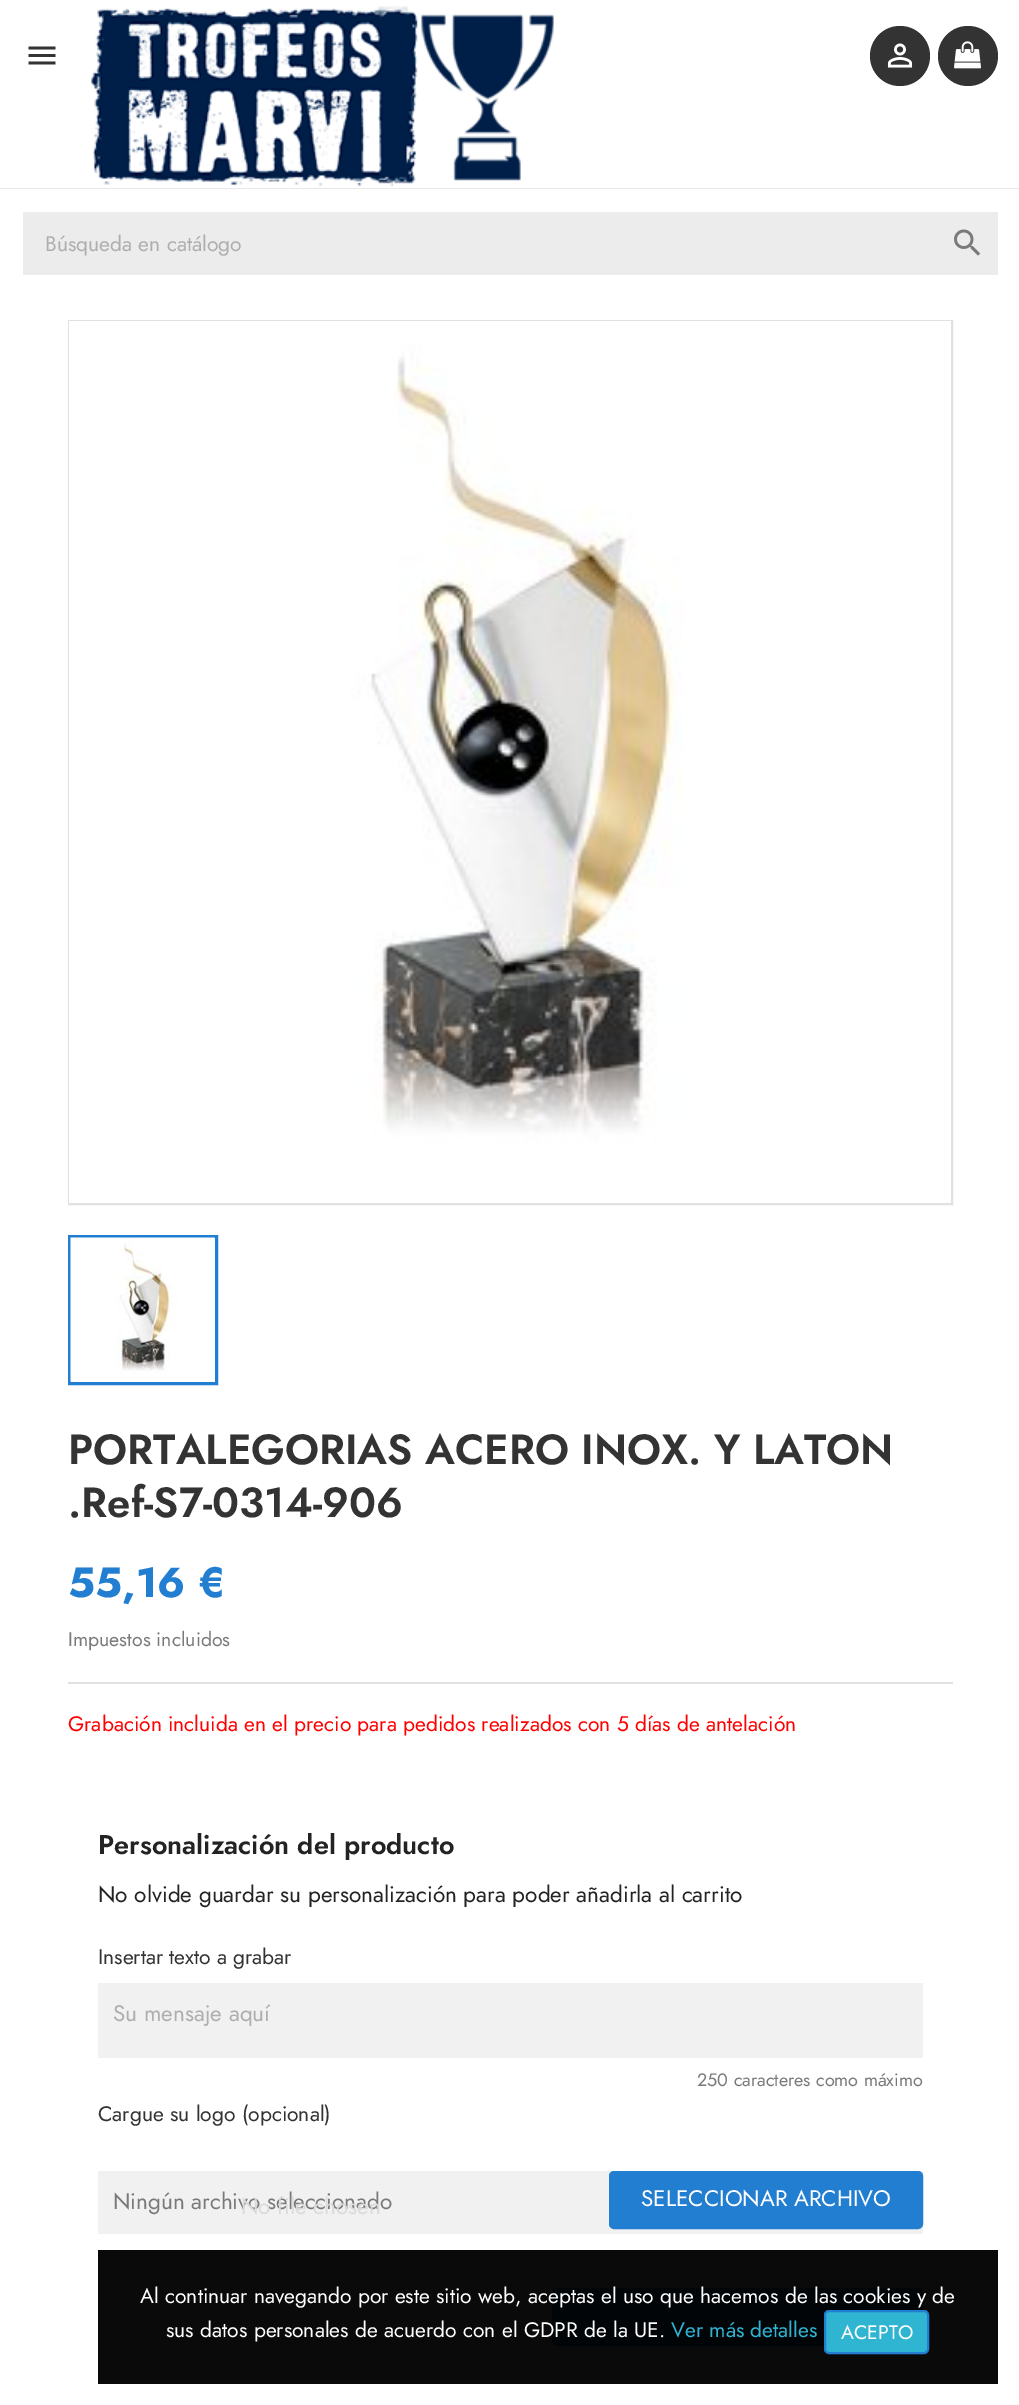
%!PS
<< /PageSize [1019 2405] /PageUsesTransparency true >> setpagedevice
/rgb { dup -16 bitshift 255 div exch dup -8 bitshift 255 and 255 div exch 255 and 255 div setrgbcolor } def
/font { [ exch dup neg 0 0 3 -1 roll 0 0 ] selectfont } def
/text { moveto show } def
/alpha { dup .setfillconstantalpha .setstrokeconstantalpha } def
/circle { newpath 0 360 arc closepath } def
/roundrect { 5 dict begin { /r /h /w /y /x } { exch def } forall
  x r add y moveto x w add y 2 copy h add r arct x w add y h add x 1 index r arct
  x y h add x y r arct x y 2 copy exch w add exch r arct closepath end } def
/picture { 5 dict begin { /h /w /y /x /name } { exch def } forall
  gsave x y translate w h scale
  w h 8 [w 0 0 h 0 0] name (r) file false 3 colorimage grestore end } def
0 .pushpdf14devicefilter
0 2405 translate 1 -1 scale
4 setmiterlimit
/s1 { /Jost-Regular 21 font 16#AEAEAE rgb } def
/s2 { /Jost-SemiBold 42 font 16#333333 rgb } def
/s3 { /Jost-Bold 42 font 16#227ED1 rgb } def
/s4 { /Jost-Regular 19.5 font 16#7A7A7A rgb } def
/s5 { /Jost-Regular 21 font 16#FF0000 rgb } def
/s6 { /Jost-SemiBold 27 font 16#232323 rgb } def
/s7 { /Jost-Regular 22.5 font 16#232323 rgb } def
/s8 { /Jost-Regular 21 font 16#333333 rgb } def
/s9 { /Jost-Regular 22.5 font 16#AEAEAE rgb } def
/s10 { /Jost-Regular 18 font 16#7A7A7A rgb } def
/s11 { /Jost-Regular 22.5 font 16#7A7A7A rgb } def
/s12 { /Jost-Regular 22.5 font 16#FFFFFF rgb } def
/s13 { /Jost-Regular 22.5 font 16#DADADA rgb } def
/s14 { /Jost-Regular 21 font 16#FFFFFF rgb } def
/s15 { /Jost-Regular 21 font 16#2FB5D2 rgb } def
/s16 { /Jost-Regular 19.5 font 16#FFFFFF rgb } def
16#FFFFFF rgb
0 0 1019 2405 rectfill
16#E8E8E8 rgb
0 188 1019 1 rectfill
(pic1.raw) 28 46 28 19 picture
(pic2.raw) 91 6 463 181 picture
16#333333 rgb
900 56 30 circle fill
(pic3.raw) 887 43 26 25 picture
968 56 30 circle fill
(pic4.raw) 954 41 27 28 picture
16#ECECEC rgb
23 212 975 63 rectfill
s1
(Búsqueda en catálogo) 45 251 text
(pic5.raw) 954 229 27 27 picture
16#E1E1E1 rgb
2 setlinewidth
69 321 883 883 rectstroke
(pic6.raw) 69 321 882 882 picture
16#227ED1 rgb
3 setlinewidth
69.5 1236.5 147 147 rectstroke
(pic7.raw) 70 1237 145 145 picture
s2
(PORTALEGORIAS ACERO INOX. Y LATON) 68 1464 text
(.Ref-S7-0314-906) 68 1517 text
s3
(55,16 €) 68 1597 text
s4
(Impuestos incluidos) 68 1646 text
16#E1E1E1 rgb
68 1682 885 2 rectfill
s5
(Grabación incluida en el precio para pedidos realizados con 5 días de antelación) 68 1731 text
s6
(Personalización del producto) 98 1854 text
s7
(No olvide guardar su personalización para poder añadirla al carrito) 98 1902 text
s8
(Insertar texto a grabar) 98 1964 text
16#F1F1F1 rgb
98 1983 825 75 rectfill
s9
(Su mensaje aquí) 113 2021 text
s10
(250 caracteres como máximo) 697 2086 text
s8
(Cargue su logo \(opcional\)) 98 2121 text
16#F1F1F1 rgb
98 2171 825 63 rectfill
s11
(Ningún archivo seleccionado) 113 2209 text
16#227ED1 rgb
610 2172 312 56 4 roundrect gsave fill grestore
2 setlinewidth
stroke
s12
(SELECCIONAR ARCHIVO) 641 2206 text
s13
(No file chosen) 241 2214 text
16#227ED1 rgb
553 2289 369 56 4 roundrect gsave fill grestore
stroke
0.8 alpha
16#000000 rgb
98 2250 900 134 rectfill
1 alpha
16#227ED1 rgb
825 2311 103 42 4 roundrect stroke
0.8 alpha
16#000000 rgb
98 2250 900 134 rectfill
1 alpha
s14
(Al continuar navegando por este sitio web, aceptas el uso que hacemos de las cookies y de) 140 2303 text
(sus datos personales de acuerdo con el GDPR de la UE.) 166 2337 text
s15
(Ver más detalles) 671 2337 text
825 2311 103 42 4 roundrect gsave fill grestore
16#227ED1 rgb
stroke
s16
(ACEPTO) 841 2339 text
.poppdf14devicefilter showpage
